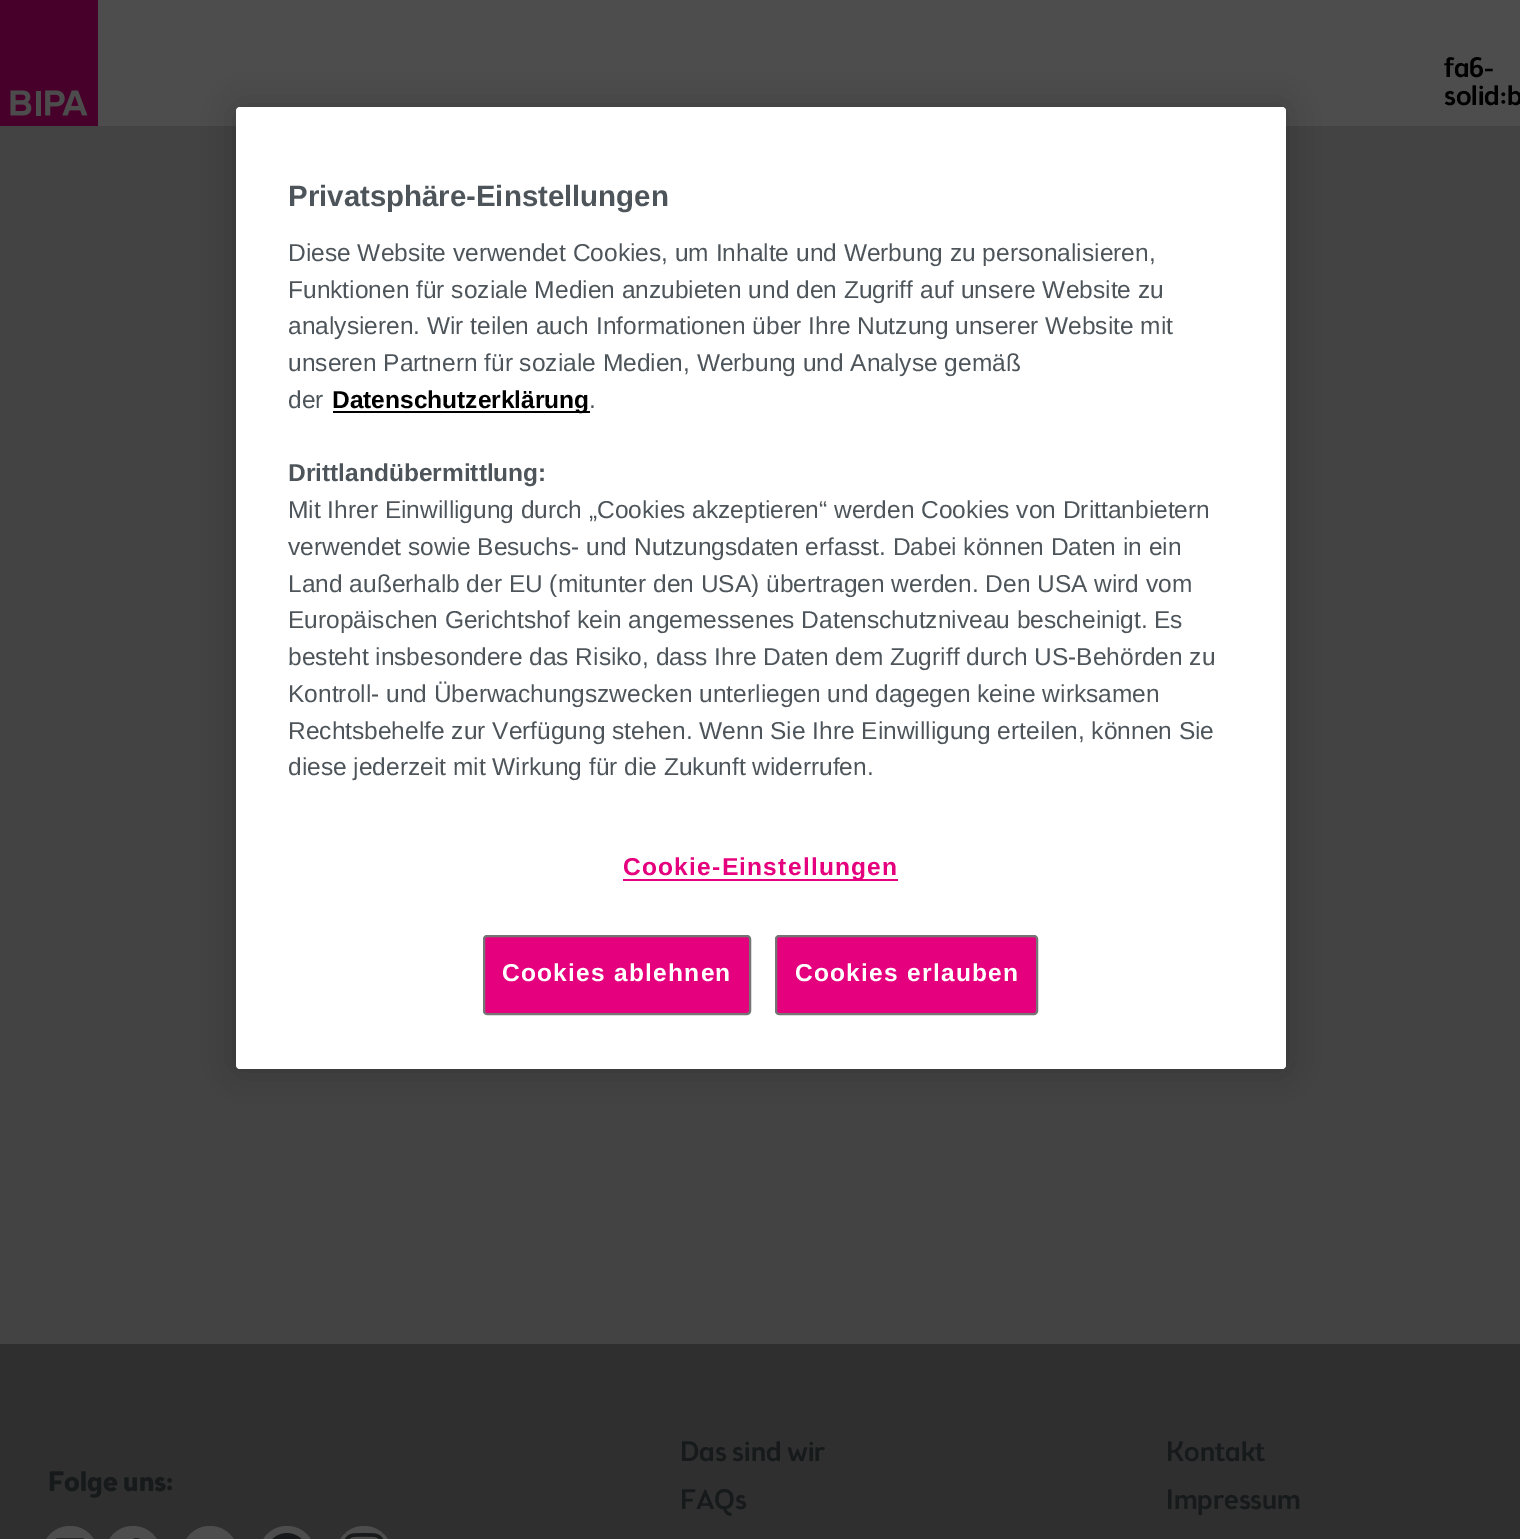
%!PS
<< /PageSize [1520 1539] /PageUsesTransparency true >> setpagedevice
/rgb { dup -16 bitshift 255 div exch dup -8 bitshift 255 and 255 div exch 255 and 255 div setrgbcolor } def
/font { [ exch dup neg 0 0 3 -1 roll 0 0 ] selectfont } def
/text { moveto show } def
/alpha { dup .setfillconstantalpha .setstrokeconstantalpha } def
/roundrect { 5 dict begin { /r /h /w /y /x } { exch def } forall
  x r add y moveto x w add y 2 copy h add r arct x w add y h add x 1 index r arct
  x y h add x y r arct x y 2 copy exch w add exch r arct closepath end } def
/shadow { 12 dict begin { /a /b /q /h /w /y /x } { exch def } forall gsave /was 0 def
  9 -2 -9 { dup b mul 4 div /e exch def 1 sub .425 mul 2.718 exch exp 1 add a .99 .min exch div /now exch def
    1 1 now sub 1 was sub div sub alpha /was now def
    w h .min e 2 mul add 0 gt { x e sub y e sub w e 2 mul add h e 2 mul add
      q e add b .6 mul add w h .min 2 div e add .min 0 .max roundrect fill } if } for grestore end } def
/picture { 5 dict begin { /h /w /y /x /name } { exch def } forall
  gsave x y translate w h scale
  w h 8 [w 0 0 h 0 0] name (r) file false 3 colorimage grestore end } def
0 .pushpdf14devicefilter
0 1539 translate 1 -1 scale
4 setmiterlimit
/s1 { /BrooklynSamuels-Medium 28 font 16#000000 rgb } def
/s2 { /BrooklynSamuels-Bold 28 font 16#171A1B rgb } def
/s3 { /BrooklynSamuels-Medium 28 font 16#171A1B rgb } def
/s4 { /LiberationSans-Bold 29.4 font 16#4D555A rgb } def
/s5 { /LiberationSans-Regular 24.5 font 16#4D555A rgb } def
/s6 { /LiberationSans-Bold 24.5 font 16#000000 rgb } def
/s7 { /LiberationSans-Bold 24.5 font 16#4D555A rgb } def
16#434343 rgb
0 0 1520 1539 rectfill
16#4D4D4D rgb
98 0 1422 126 rectfill
(pic1.raw) 0 0 98 126 picture
s1
(fa6-) 1444 77 text
(solid:b) 1444 105 text
16#2F2F2F rgb
0 1344 1520 195 rectfill
s2
(Folge uns:) 48 1491 text
16#4D4D4D rgb
42 1526 56 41 28 roundrect fill
(pic2.raw) 55 1538 30 1 picture
105 1526 56 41 28 roundrect fill
(pic3.raw) 133 1538 7 1 picture
182 1526 56 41 28 roundrect fill
259 1526 56 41 28 roundrect fill
(pic4.raw) 272 1533 30 6 picture
336 1526 56 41 28 roundrect fill
(pic5.raw) 344 1533 40 6 picture
s3
(Das sind wir) 680 1461 text
(FAQs) 680 1509 text
(Kontakt) 1166 1461 text
(Impressum) 1166 1509 text
16#000000 rgb
236 107 1050 962 4 16 0.2 shadow
16#FFFFFF rgb
236 107 1050 962 4 roundrect fill
s4
(Privatsphäre-Einstellungen) 288 206 text
s5
(Diese Website verwendet Cookies, um Inhalte und Werbung zu personalisieren,) 288 261 text
(Funktionen für soziale Medien anzubieten und den Zugriff auf unsere Website zu) 288 298 text
(analysieren. Wir teilen auch Informationen über Ihre Nutzung unserer Website mit) 288 334 text
(unseren Partnern für soziale Medien, Werbung und Analyse gemäß) 288 371 text
(der) 288 408 text
16#000000 rgb
333 411 257 2 rectfill
s6
(Datenschutzerklärung) 332 408 text
s5
(.) 589 408 text
s7
(Drittlandübermittlung:) 288 481 text
s5
(Mit Ihrer Einwilligung durch „Cookies akzeptieren“ werden Cookies von Drittanbietern) 288 518 text
(verwendet sowie Besuchs- und Nutzungsdaten erfasst. Dabei können Daten in ein) 288 555 text
(Land außerhalb der EU \(mitunter den USA\) übertragen werden. Den USA wird vom) 288 592 text
(Europäischen Gerichtshof kein angemessenes Datenschutzniveau bescheinigt. Es) 288 628 text
(besteht insbesondere das Risiko, dass Ihre Daten dem Zugriff durch US-Behörden zu) 288 665 text
(Kontroll- und Überwachungszwecken unterliegen und dagegen keine wirksamen) 288 702 text
(Rechtsbehelfe zur Verfügung stehen. Wenn Sie Ihre Einwilligung erteilen, können Sie) 288 739 text
(diese jederzeit mit Wirkung für die Zukunft widerrufen.) 288 775 text
16#E5007D rgb
623 879 275 2 rectfill
/LiberationSans-Bold 24.5 font
623 875 moveto 1.25 0 (Cookie-Einstellungen) ashow
484 936 266 78 3 roundrect gsave fill grestore
16#757575 rgb
2 setlinewidth
stroke
16#FFFFFF rgb
502 981 moveto 1.25 0 (Cookies ablehnen) ashow
16#E5007D rgb
776 936 261 78 3 roundrect gsave fill grestore
16#757575 rgb
stroke
16#FFFFFF rgb
795 981 moveto 1.25 0 (Cookies erlauben) ashow
.poppdf14devicefilter showpage
